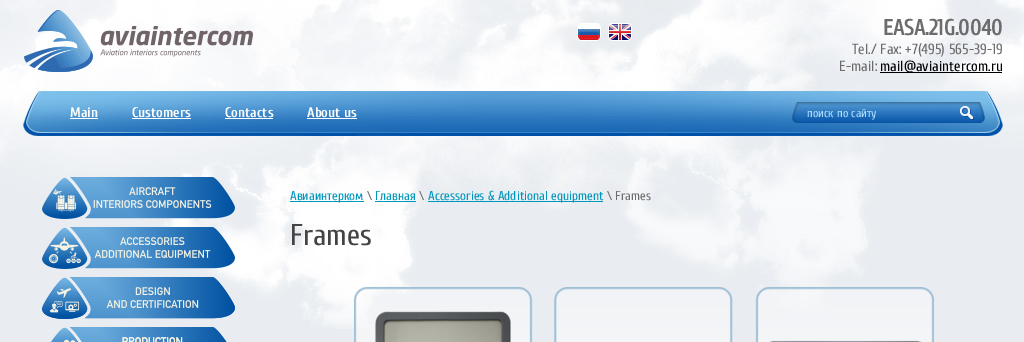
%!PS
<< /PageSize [1024 342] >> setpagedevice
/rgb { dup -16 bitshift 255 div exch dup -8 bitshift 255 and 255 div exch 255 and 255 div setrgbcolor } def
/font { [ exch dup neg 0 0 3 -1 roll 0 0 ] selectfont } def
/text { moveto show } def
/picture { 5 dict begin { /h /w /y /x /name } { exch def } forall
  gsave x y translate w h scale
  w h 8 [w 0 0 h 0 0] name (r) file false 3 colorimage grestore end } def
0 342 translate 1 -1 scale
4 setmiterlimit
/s1 { /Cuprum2-Bold 22 font 16#6C6C6D rgb } def
/s2 { /Cuprum-Regular 14.75 font 16#6C6C6D rgb } def
/s3 { /Cuprum-Regular 14.75 font 16#000000 rgb } def
/s4 { /Cuprum-Bold 14 font 16#FFFFFF rgb } def
/s5 { /Cuprum-Regular 12 font 16#AEDEFF rgb } def
/s6 { /Cuprum-Regular 13 font 16#0097BD rgb } def
/s7 { /Cuprum-Regular 13 font 16#6C6C6D rgb } def
/s8 { /Cuprum-Regular 30 font 16#444444 rgb } def
16#E9EDF1 rgb
0 0 1024 342 rectfill
(pic1.raw) 0 0 1024 329 picture
(pic2.raw) 24 10 229 62 picture
(pic3.raw) 577 23 24 18 picture
(pic4.raw) 608 23 24 18 picture
s1
(EASA.21G.0040) 883 35 text
s2
(Tel./ Fax: +7\(495\) 565-39-19) 852 54 text
(E-mail:) 839 71 text
16#000000 rgb
880 72 122 1 rectfill
(mail@aviaintercom.ru) 880 71 text
s4
(Main) 70 117 text
70 118 28 1 rectfill
(Customers) 132 117 text
132 118 59 1 rectfill
(Contacts) 225 117 text
225 118 48 1 rectfill
(About us) 307 117 text
307 118 50 1 rectfill
(pic5.raw) 792 102 193 21 picture
s5
(поиск по сайту) 807 117 text
(pic6.raw) 42 177 193 42 picture
(pic7.raw) 42 227 193 42 picture
(pic8.raw) 42 277 193 42 picture
(pic9.raw) 51 327 176 15 picture
16#0097BD rgb
290 201 74 1 rectfill
s6
(Авиаинтерком) 290 200 text
s7
(\\) 367 200 text
s6
(Главная) 375 200 text
375 201 41 1 rectfill
s7
(\\) 419 200 text
16#0097BD rgb
428 201 175 1 rectfill
(Accessories & Additional equipment) 428 200 text
s7
(\\ Frames) 607 200 text
s8
(Frames) 290 245 text
(pic10.raw) 354 287 580 55 picture
showpage
